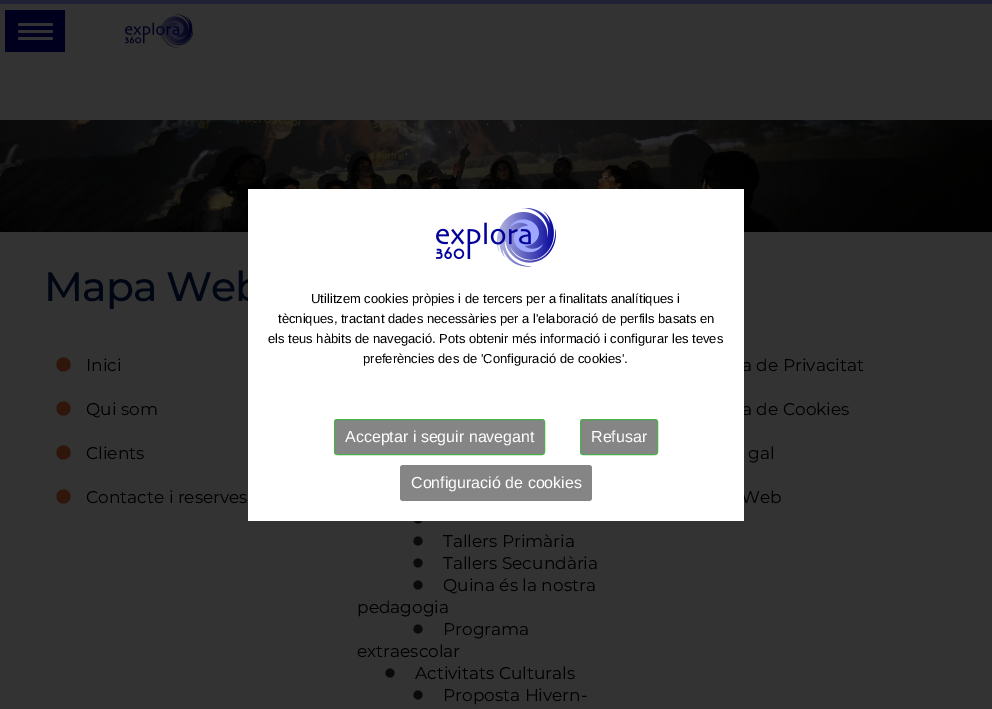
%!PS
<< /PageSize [992 709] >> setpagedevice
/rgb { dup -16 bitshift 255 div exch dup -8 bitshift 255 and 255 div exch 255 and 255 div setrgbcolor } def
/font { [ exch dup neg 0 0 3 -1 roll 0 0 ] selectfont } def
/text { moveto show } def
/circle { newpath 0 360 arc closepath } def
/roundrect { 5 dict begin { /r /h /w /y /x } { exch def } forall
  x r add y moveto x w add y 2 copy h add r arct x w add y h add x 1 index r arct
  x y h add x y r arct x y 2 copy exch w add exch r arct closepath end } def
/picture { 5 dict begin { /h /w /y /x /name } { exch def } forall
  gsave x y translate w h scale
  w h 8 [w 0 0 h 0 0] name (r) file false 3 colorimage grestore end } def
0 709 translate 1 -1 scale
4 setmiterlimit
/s1 { /Montserrat-Regular 17 font 16#000000 rgb } def
/s2 { /LiberationSans-Regular 13 font 16#000000 rgb } def
/s3 { /LiberationSans-Regular 16 font 16#FFFFFF rgb } def
16#333333 rgb
0 0 992 709 rectfill
16#202233 rgb
0 0 992 4 rectfill
(pic1.raw) 125 14 68 34 picture
16#00001E rgb
5 10 60 42 rectfill
16#333333 rgb
18 23 35 3 1.5 roundrect fill
18 30 35 3 1.5 roundrect fill
18 37 35 3 1.5 roundrect fill
(pic2.raw) 0 120 992 112 picture
/Montserrat-Medium 41 font
16#010613 rgb
44 301 moveto -1 0 (Mapa Web) ashow
16#30160A rgb
63.5 364.5 7 circle fill
s1
(Inici) 86 371 text
16#30160A rgb
63.5 408.5 7 circle fill
s1
(Qui som) 86 415 text
16#30160A rgb
63.5 452.5 7 circle fill
s1
(Clients) 86 459 text
16#30160A rgb
63.5 496.5 7 circle fill
s1
(Contacte i reserves) 86 503 text
(a de Privacitat) 742 371 text
(a de Cookies) 742 415 text
(gal) 748 459 text
(Web) 741 503 text
16#0A0A0A rgb
418 519 4.5 circle fill
418 541 4.5 circle fill
s1
(Tallers Primària) 443 547 text
16#0A0A0A rgb
418 563 4.5 circle fill
s1
(Tallers Secundària) 443 569 text
16#0A0A0A rgb
418 585 4.5 circle fill
s1
(Quina és la nostra) 443 591 text
(pedagogia) 357 613 text
16#0A0A0A rgb
418 629 4.5 circle fill
s1
(Programa) 443 635 text
(extraescolar) 357 657 text
16#0A0A0A rgb
390 673 4.5 circle fill
s1
(Activitats Culturals) 415 679 text
16#0A0A0A rgb
418 695 4.5 circle fill
s1
(Proposta Hivern-) 443 701 text
16#FFFFFF rgb
248 189 496 332 rectfill
(pic3.raw) 436 208 120 59 picture
s2
(Utilitzem cookies pròpies i de tercers per a finalitats analítiques i) 311 303 text
(tècniques, tractant dades necessàries per a l'elaboració de perfils basats en) 278 323 text
(els teus hàbits de navegació. Pots obtenir més informació i configurar les teves) 268 343 text
(preferències des de 'Configuració de cookies'.) 363 363 text
16#858585 rgb
334.5 419.5 210 35 2.5 roundrect gsave fill grestore
16#4CAE4C rgb
stroke
s3
(Acceptar i seguir navegant) 345 442 text
16#858585 rgb
580.5 419.5 77 35 2.5 roundrect gsave fill grestore
16#4CAE4C rgb
stroke
s3
(Refusar) 591 442 text
16#858585 rgb
400 465 192 36 3 roundrect fill
s3
(Configuració de cookies) 411 488 text
showpage
